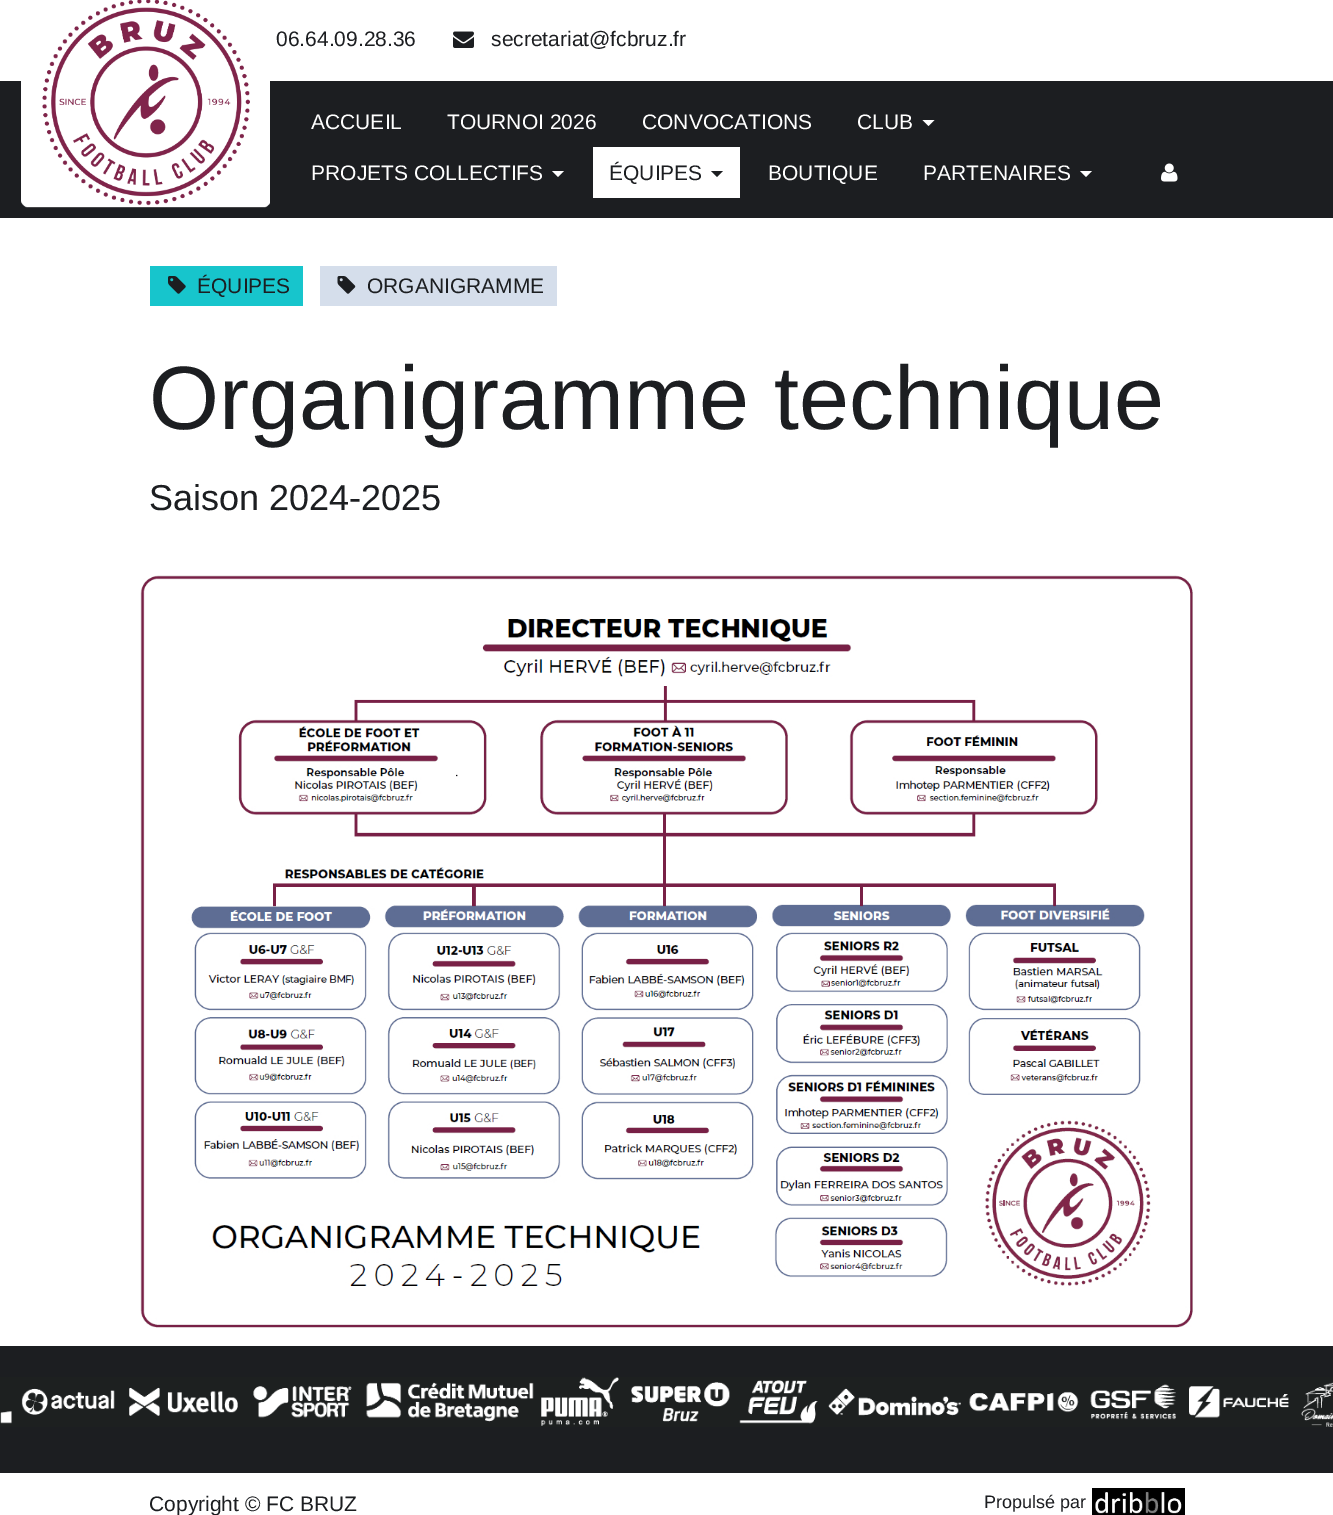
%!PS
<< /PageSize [1333 1515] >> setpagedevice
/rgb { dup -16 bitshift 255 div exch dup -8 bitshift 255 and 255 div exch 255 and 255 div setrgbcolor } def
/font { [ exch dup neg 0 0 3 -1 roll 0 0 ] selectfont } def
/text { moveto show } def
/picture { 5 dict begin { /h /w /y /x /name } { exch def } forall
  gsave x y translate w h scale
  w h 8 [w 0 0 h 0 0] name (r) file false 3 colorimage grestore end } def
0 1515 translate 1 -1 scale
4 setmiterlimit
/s1 { /LiberationSans-Regular 21 font 16#1C1E21 rgb } def
/s2 { /LiberationSans-Regular 21 font 16#FFFFFF rgb } def
/s3 { /LiberationSans-Regular 90 font 16#1C1E21 rgb } def
/s4 { /LiberationSans-Regular 36 font 16#1C1E21 rgb } def
/s5 { /LiberationSans-Regular 18 font 16#1C1E21 rgb } def
16#FFFFFF rgb
0 0 1333 1515 rectfill
s1
(06.64.09.28.36) 276 46 text
(pic1.raw) 453 31 21 17 picture
(secretariat@fcbruz.fr) 491 46 text
0 81 1333 137 rectfill
(pic2.raw) 21 0 249 208 picture
s2
(ACCUEIL) 311 129 text
(TOURNOI 2026) 447 129 text
(CONVOCATIONS) 642 129 text
(CLUB) 857 129 text
922.5 120 moveto 934.5 120 lineto 928.5 126 lineto closepath fill
(PROJETS COLLECTIFS) 311 180 text
552 171 moveto 564 171 lineto 558 177 lineto closepath fill
593 147 147 51 rectfill
s1
(ÉQUIPES) 609 180 text
711 171 moveto 723 171 lineto 717 177 lineto closepath fill
s2
(BOUTIQUE) 768 180 text
(PARTENAIRES) 923 180 text
1080 171 moveto 1092 171 lineto 1086 177 lineto closepath fill
(pic3.raw) 1161 163 17 19 picture
16#17C5CC rgb
150 266 153 40 rectfill
(pic4.raw) 168 276 18 18 picture
s1
(ÉQUIPES) 197 293 text
16#D5DEEB rgb
320 266 237 40 rectfill
(pic5.raw) 337 276 19 18 picture
s1
(ORGANIGRAMME) 367 293 text
s3
(Organigramme technique) 149 429 text
s4
(Saison 2024-2025) 149 510 text
(pic6.raw) 140 575 1053 753 picture
0 1346 1333 127 rectfill
(pic7.raw) 0 1377 1333 50 picture
s1
(Copyright © FC BRUZ) 149 1511 text
s5
(Propulsé par) 984 1508 text
(pic8.raw) 1092 1488 93 27 picture
showpage
